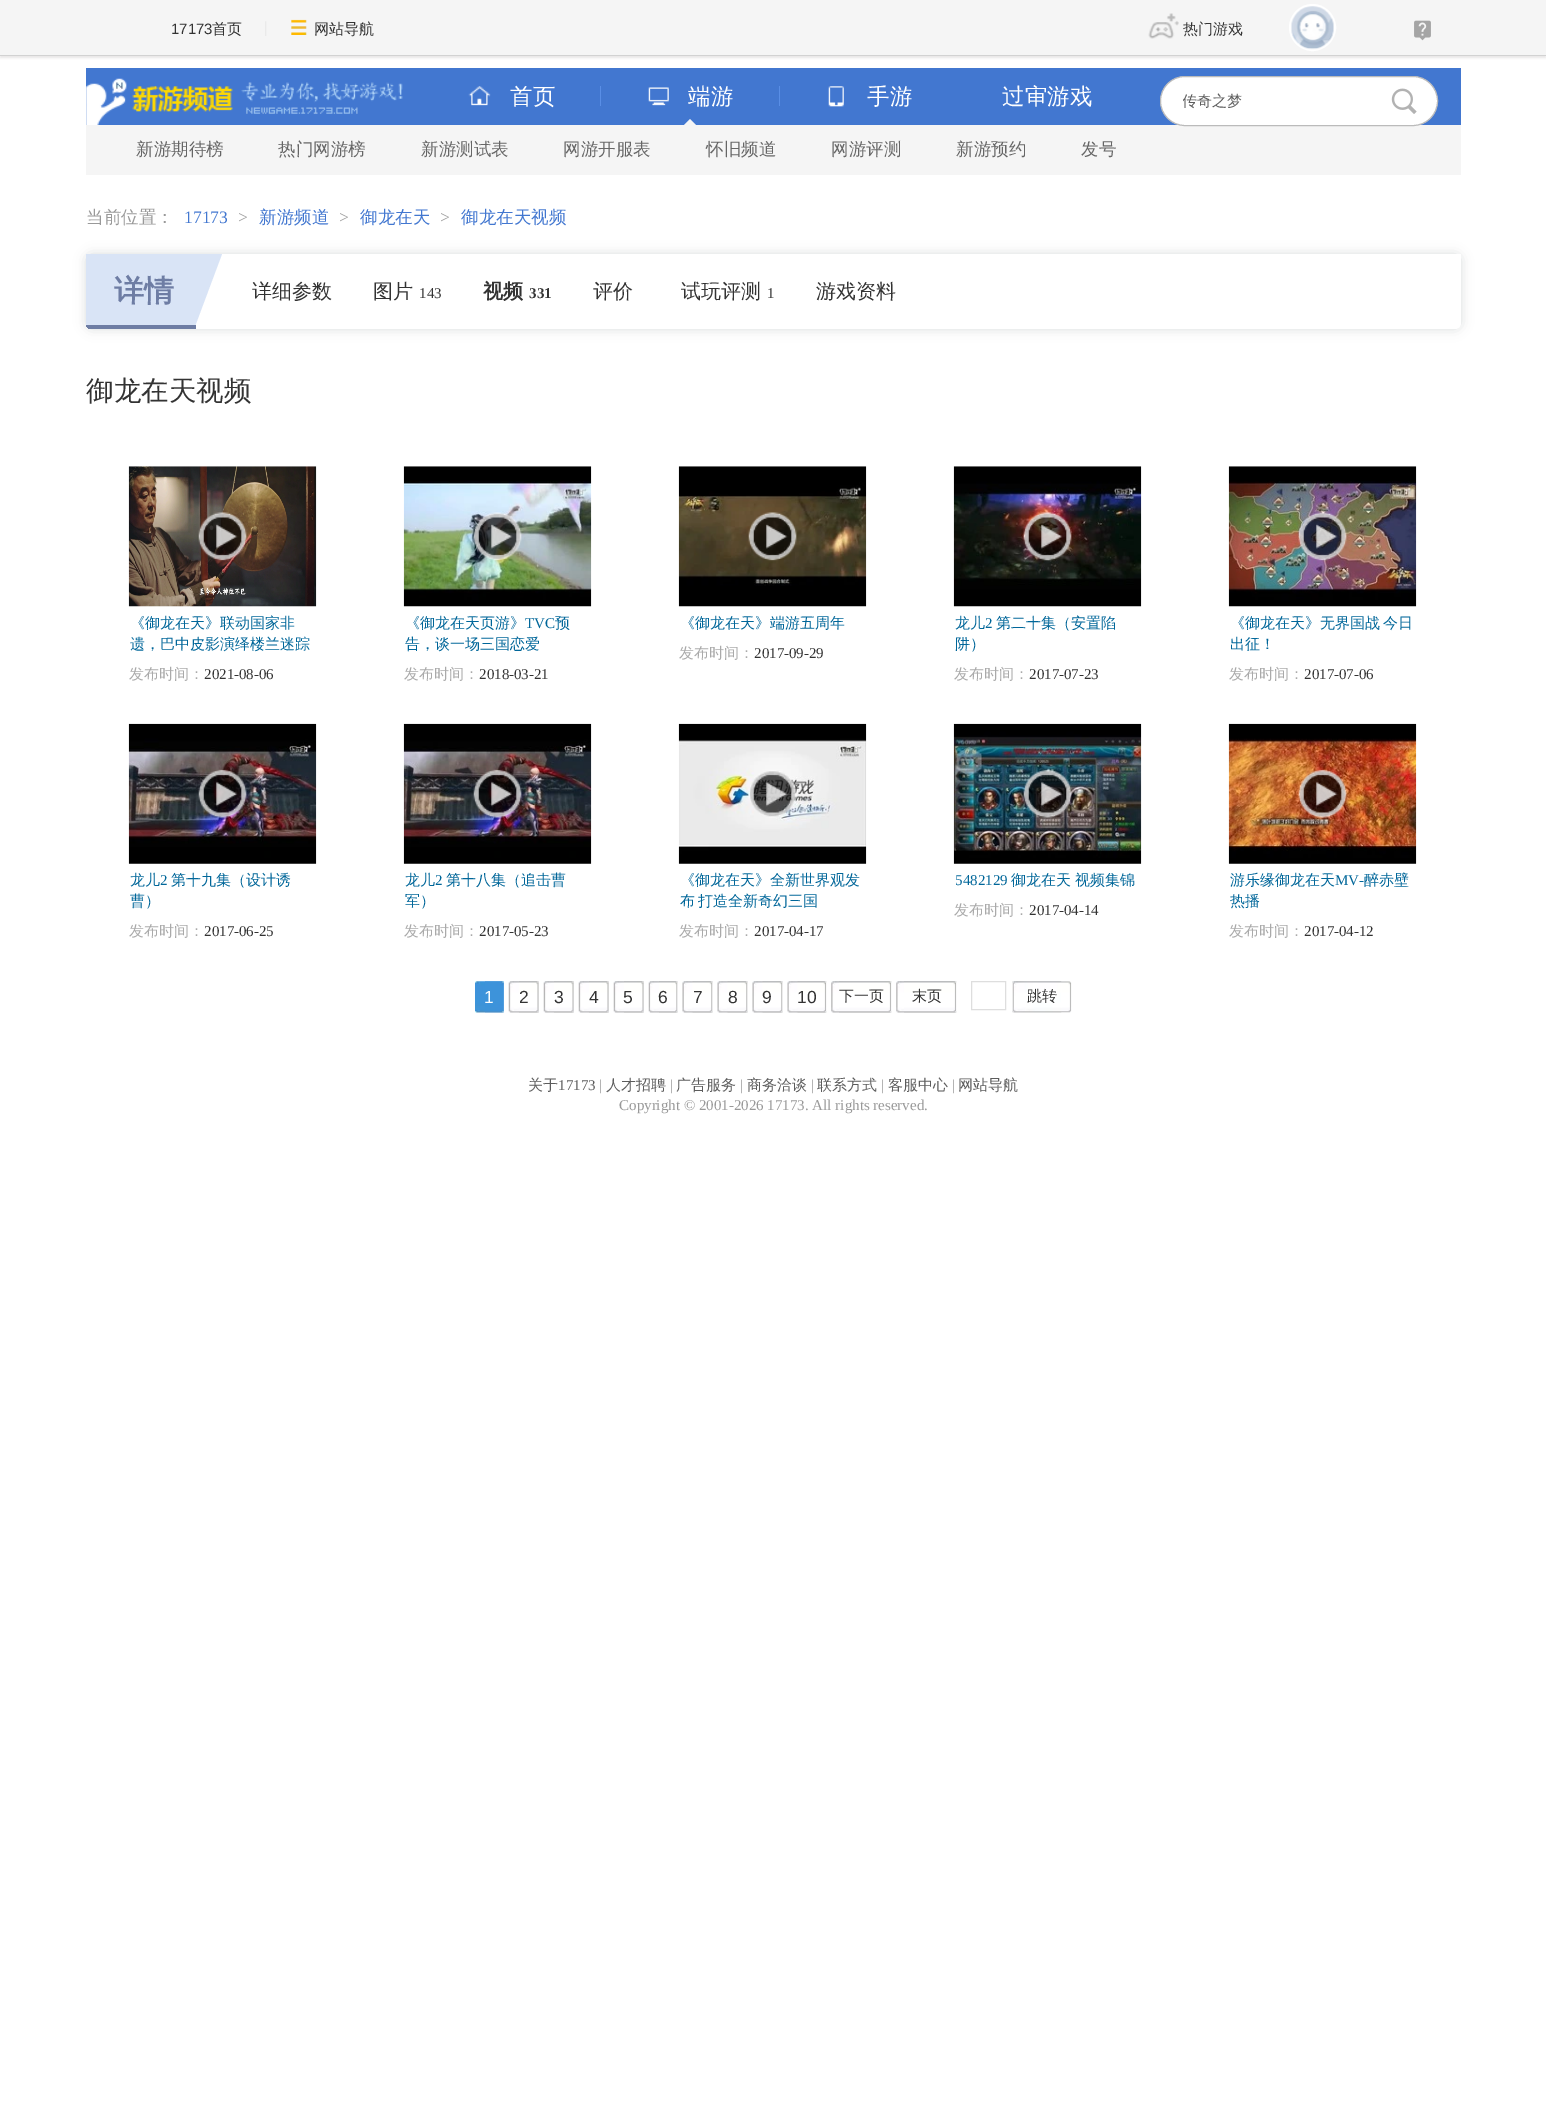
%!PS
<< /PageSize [1546 2110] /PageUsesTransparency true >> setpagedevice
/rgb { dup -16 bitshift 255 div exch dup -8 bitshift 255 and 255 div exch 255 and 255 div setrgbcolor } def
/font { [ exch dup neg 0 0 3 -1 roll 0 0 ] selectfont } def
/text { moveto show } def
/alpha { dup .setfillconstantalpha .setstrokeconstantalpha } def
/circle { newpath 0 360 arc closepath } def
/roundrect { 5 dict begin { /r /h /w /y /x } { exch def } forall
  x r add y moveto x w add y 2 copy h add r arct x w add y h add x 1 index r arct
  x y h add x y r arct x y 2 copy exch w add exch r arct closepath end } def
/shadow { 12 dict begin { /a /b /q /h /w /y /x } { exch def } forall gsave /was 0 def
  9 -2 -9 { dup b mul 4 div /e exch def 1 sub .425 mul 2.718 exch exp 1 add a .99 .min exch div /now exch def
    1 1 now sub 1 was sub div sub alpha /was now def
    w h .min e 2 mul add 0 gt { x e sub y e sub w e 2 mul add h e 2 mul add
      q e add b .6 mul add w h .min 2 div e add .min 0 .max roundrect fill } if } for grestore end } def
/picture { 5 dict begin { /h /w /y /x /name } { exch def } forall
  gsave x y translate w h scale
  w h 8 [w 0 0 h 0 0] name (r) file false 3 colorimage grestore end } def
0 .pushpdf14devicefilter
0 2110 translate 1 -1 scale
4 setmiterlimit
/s1 { /LiberationSans-Regular 15 font 16#333333 rgb } def
/s2 { /WenQuanYiZenHei-Medium 15 font 16#333333 rgb } def
/s3 { /WenQuanYiZenHei-Medium 22.5 font 16#FFFFFF rgb } def
/s4 { /WenQuanYiZenHei-Medium 17.5 font 16#666666 rgb } def
/s5 { /WenQuanYiZenHei-Medium 15 font 16#5C5C5C rgb } def
/s6 { /WenQuanYiZenHei-Medium 17.5 font 16#999999 rgb } def
/s7 { /LiberationSerif-Regular 17.5 font 16#4277D0 rgb } def
/s8 { /LiberationSerif-Regular 17.5 font 16#999999 rgb } def
/s9 { /WenQuanYiZenHei-Medium 17.5 font 16#4277D0 rgb } def
/s10 { /WenQuanYiZenHei-Bold 30 font 16#6E7DA4 rgb } def
/s11 { /WenQuanYiZenHei-Medium 20 font 16#333333 rgb } def
/s12 { /LiberationSerif-Regular 15 font 16#333333 rgb } def
/s13 { /WenQuanYiZenHei-Bold 20 font 16#333333 rgb } def
/s14 { /LiberationSerif-Bold 15 font 16#333333 rgb } def
/s15 { /WenQuanYiZenHei-Medium 27.5 font 16#333333 rgb } def
/s16 { /WenQuanYiZenHei-Medium 15 font 16#006699 rgb } def
/s17 { /WenQuanYiZenHei-Medium 15 font 16#AAAAAA rgb } def
/s18 { /LiberationSerif-Regular 15 font 16#006699 rgb } def
/s19 { /LiberationSans-Regular 17.5 font 16#FFFFFF rgb } def
/s20 { /LiberationSans-Regular 17.5 font 16#333333 rgb } def
/s21 { /LiberationSerif-Regular 15 font 16#5C5C5C rgb } def
/s22 { /LiberationSerif-Regular 15 font 16#999999 rgb } def
16#FFFFFF rgb
0 0 1546 2110 rectfill
16#E8E6E6 rgb
0 1 1546 57 0 1 1 shadow
16#F5F5F5 rgb
0 0 1546 55 rectfill
16#D2D2D2 rgb
0 55 1546 1 rectfill
s1
(17173) 171 34 text
s2
(首页) 212 34 text
(pic1.raw) 265 21 2 15 picture
(pic2.raw) 291 19 16 16 picture
(网站导航) 314 34 text
(pic3.raw) 1148 13 31 26 picture
(热门游戏) 1183 34 text
16#FFFFFF rgb
3 setlinewidth
1312.5 27.5 22 circle stroke
(pic4.raw) 1291 6 43 44 picture
(pic5.raw) 1414 20 17 21 picture
16#4277D0 rgb
86 68 1375 57 rectfill
(pic6.raw) 468 86 23 20 picture
s3
(首页) 510 104 text
16#598EE6 rgb
600 86 1 20 rectfill
(pic7.raw) 648 87 21 19 picture
s3
(端游) 688 104 text
16#F5F5F5 rgb
696 125 moveto 684 125 lineto 690 119 lineto closepath fill
16#598EE6 rgb
779 86 1 20 rectfill
(pic8.raw) 828 86 16 21 picture
s3
(手游) 867 104 text
(过审游戏) 1002 104 text
16#F5F5F5 rgb
86 125 1375 50 rectfill
s4
(新游期待榜) 136 155 text
(热门网游榜) 278 155 text
(新游测试表) 421 155 text
(网游开服表) 563 155 text
(怀旧频道) 706 155 text
(网游评测) 831 155 text
(新游预约) 956 155 text
(发号) 1081 155 text
(pic9.raw) 86 78 147 47 picture
(pic10.raw) 241 82 162 32 picture
16#FFFFFF rgb
1160.5 76.5 277 49 24.5 roundrect gsave fill grestore
16#BBBBBB rgb
1 setlinewidth
stroke
gsave
1183 91 188 22 rectclip
s5
(传奇之梦) 1182 106 text
grestore
(pic11.raw) 1391 88 26 26 picture
s6
(当前位置：) 86 223 text
s7
(17173) 184 223 text
s8
(>) 238 223 text
s9
(新游频道) 259 223 text
s8
(>) 339 223 text
s9
(御龙在天) 360 223 text
s8
(>) 440 223 text
s9
(御龙在天视频) 461 223 text
16#414B5A rgb
86 254 1375 75 6 6 0.2 shadow
16#FFFFFF rgb
86 254 moveto 1461 254 lineto 1461 323 lineto 1461 326.5 1458.5 329 1455 329 curveto 92 329 lineto 88.5 329 86 326.5 86 323 curveto closepath fill
16#D9E4F6 rgb
86 254 moveto 86 323 lineto 86 326 89 329 92 329 curveto 194 329 lineto 222 254 lineto closepath fill
s10
(详情) 114 301 text
gsave
86 254 moveto 1269 254 lineto 1269 323 lineto 1269 326.5 1266.5 329 1263 329 curveto 92 329 lineto 88.5 329 86 326.5 86 323 curveto closepath clip newpath
86 325 110 4 rectfill
grestore
s11
(详细参数) 252 298 text
(图片) 373 298 text
s12
(143) 419 298 text
s13
(视频) 483 298 text
s14
(331) 529 298 text
s11
(评价) 593 298 text
(试玩评测) 681 298 text
s12
(1) 767 298 text
s11
(游戏资料) 816 298 text
s15
(御龙在天视频) 86 400 text
(pic12.raw) 128 466 189 141 picture
(pic13.raw) 198 512 49 49 picture
s16
(《御龙在天》联动国家非) 130 628 text
(遗，巴中皮影演绎楼兰迷踪) 130 649 text
s17
(发布时间：) 129 679 text
s12
(2021-08-06) 204 679 text
(pic14.raw) 403 466 189 141 picture
(pic15.raw) 473 512 49 49 picture
s16
(《御龙在天页游》) 405 628 text
s18
(TVC) 525 628 text
s16
(预) 555 628 text
(告，谈一场三国恋爱) 405 649 text
s17
(发布时间：) 404 679 text
s12
(2018-03-21) 479 679 text
(pic16.raw) 678 466 189 141 picture
(pic17.raw) 748 512 49 49 picture
s16
(《御龙在天》端游五周年) 680 628 text
s17
(发布时间：) 679 658 text
s12
(2017-09-29) 754 658 text
(pic18.raw) 953 466 189 141 picture
(pic19.raw) 1023 512 49 49 picture
s16
(龙儿) 955 628 text
s18
(2) 985 628 text
s16
(第二十集（安置陷) 996 628 text
(阱）) 955 649 text
s17
(发布时间：) 954 679 text
s12
(2017-07-23) 1029 679 text
(pic20.raw) 1228 466 189 141 picture
(pic21.raw) 1298 512 49 49 picture
/WenQuanYiZenHei-Medium 15 font
16#006699 rgb
1230 628 moveto -1 0 32 (《御龙在天》无界国战 今日) widthshow
(出征！) 1230 649 text
s17
(发布时间：) 1229 679 text
s12
(2017-07-06) 1304 679 text
(pic22.raw) 128 723 189 141 picture
(pic23.raw) 198 769 49 49 picture
s16
(龙儿) 130 885 text
s18
(2) 160 885 text
s16
(第十九集（设计诱) 171 885 text
(曹）) 130 906 text
s17
(发布时间：) 129 936 text
s12
(2017-06-25) 204 936 text
(pic24.raw) 403 723 189 141 picture
(pic25.raw) 473 769 49 49 picture
s16
(龙儿) 405 885 text
s18
(2) 435 885 text
s16
(第十八集（追击曹) 446 885 text
(军）) 405 906 text
s17
(发布时间：) 404 936 text
s12
(2017-05-23) 479 936 text
(pic26.raw) 678 723 189 141 picture
(pic27.raw) 748 770 49 48 picture
s16
(《御龙在天》全新世界观发) 680 885 text
680 906 moveto -1 0 32 (布 打造全新奇幻三国) widthshow
s17
(发布时间：) 679 936 text
s12
(2017-04-17) 754 936 text
(pic28.raw) 953 723 189 141 picture
(pic29.raw) 1023 769 49 49 picture
s18
(5482129) 955 885 text
s16
(御龙在天 视频集锦) 1011 885 text
s17
(发布时间：) 954 915 text
s12
(2017-04-14) 1029 915 text
(pic30.raw) 1228 723 189 141 picture
(pic31.raw) 1298 769 49 49 picture
s16
(游乐缘御龙在天) 1230 885 text
s18
(MV-) 1335 885 text
s16
(醉赤壁) 1364 885 text
(热播) 1230 906 text
s17
(发布时间：) 1229 936 text
s12
(2017-04-12) 1304 936 text
(pic32.raw) 475 981 29 32 picture
(pic33.raw) 485 981 19 32 picture
s19
(1) 484 1003 text
(pic34.raw) 508 981 31 32 picture
(pic35.raw) 519 981 20 32 picture
s20
(2) 519 1003 text
(pic34.raw) 543 981 31 32 picture
(pic35.raw) 554 981 20 32 picture
(3) 554 1003 text
(pic34.raw) 578 981 31 32 picture
(pic35.raw) 589 981 20 32 picture
(4) 589 1003 text
(pic34.raw) 613 981 31 32 picture
(pic35.raw) 624 981 20 32 picture
(5) 623 1003 text
(pic36.raw) 648 981 30 32 picture
(pic37.raw) 659 981 19 32 picture
(6) 658 1003 text
(pic38.raw) 682 981 31 32 picture
(pic39.raw) 692 981 21 32 picture
(7) 693 1003 text
(pic38.raw) 717 981 31 32 picture
(pic39.raw) 727 981 21 32 picture
(8) 728 1003 text
(pic38.raw) 752 981 31 32 picture
(pic39.raw) 762 981 21 32 picture
(9) 762 1003 text
(pic40.raw) 787 981 40 32 picture
(pic41.raw) 797 981 30 32 picture
(10) 797 1003 text
(pic42.raw) 831 981 61 32 picture
(pic43.raw) 839 981 53 32 picture
s2
(下一页) 839 1001 text
(pic42.raw) 896 981 61 32 picture
(pic43.raw) 904 981 53 32 picture
(末页) 912 1001 text
16#DEDEDE rgb
971.5 981.5 34 28 rectstroke
(pic44.raw) 1012 981 60 32 picture
(pic45.raw) 1012 981 50 32 picture
s2
(跳转) 1027 1001 text
s5
(关于) 528 1090 text
s21
(17173) 558 1090 text
s22
(|) 599 1090 text
s5
(人才招聘) 606 1090 text
s22
(|) 670 1090 text
s5
(广告服务) 676 1090 text
s22
(|) 740 1090 text
s5
(商务洽谈) 747 1090 text
s22
(|) 811 1090 text
s5
(联系方式) 817 1090 text
s22
(|) 881 1090 text
s5
(客服中心) 888 1090 text
s22
(|) 952 1090 text
s5
(网站导航) 958 1090 text
s22
(Copyright © 2001-2026 17173. All rights reserved.) 619 1110 text
.poppdf14devicefilter showpage
